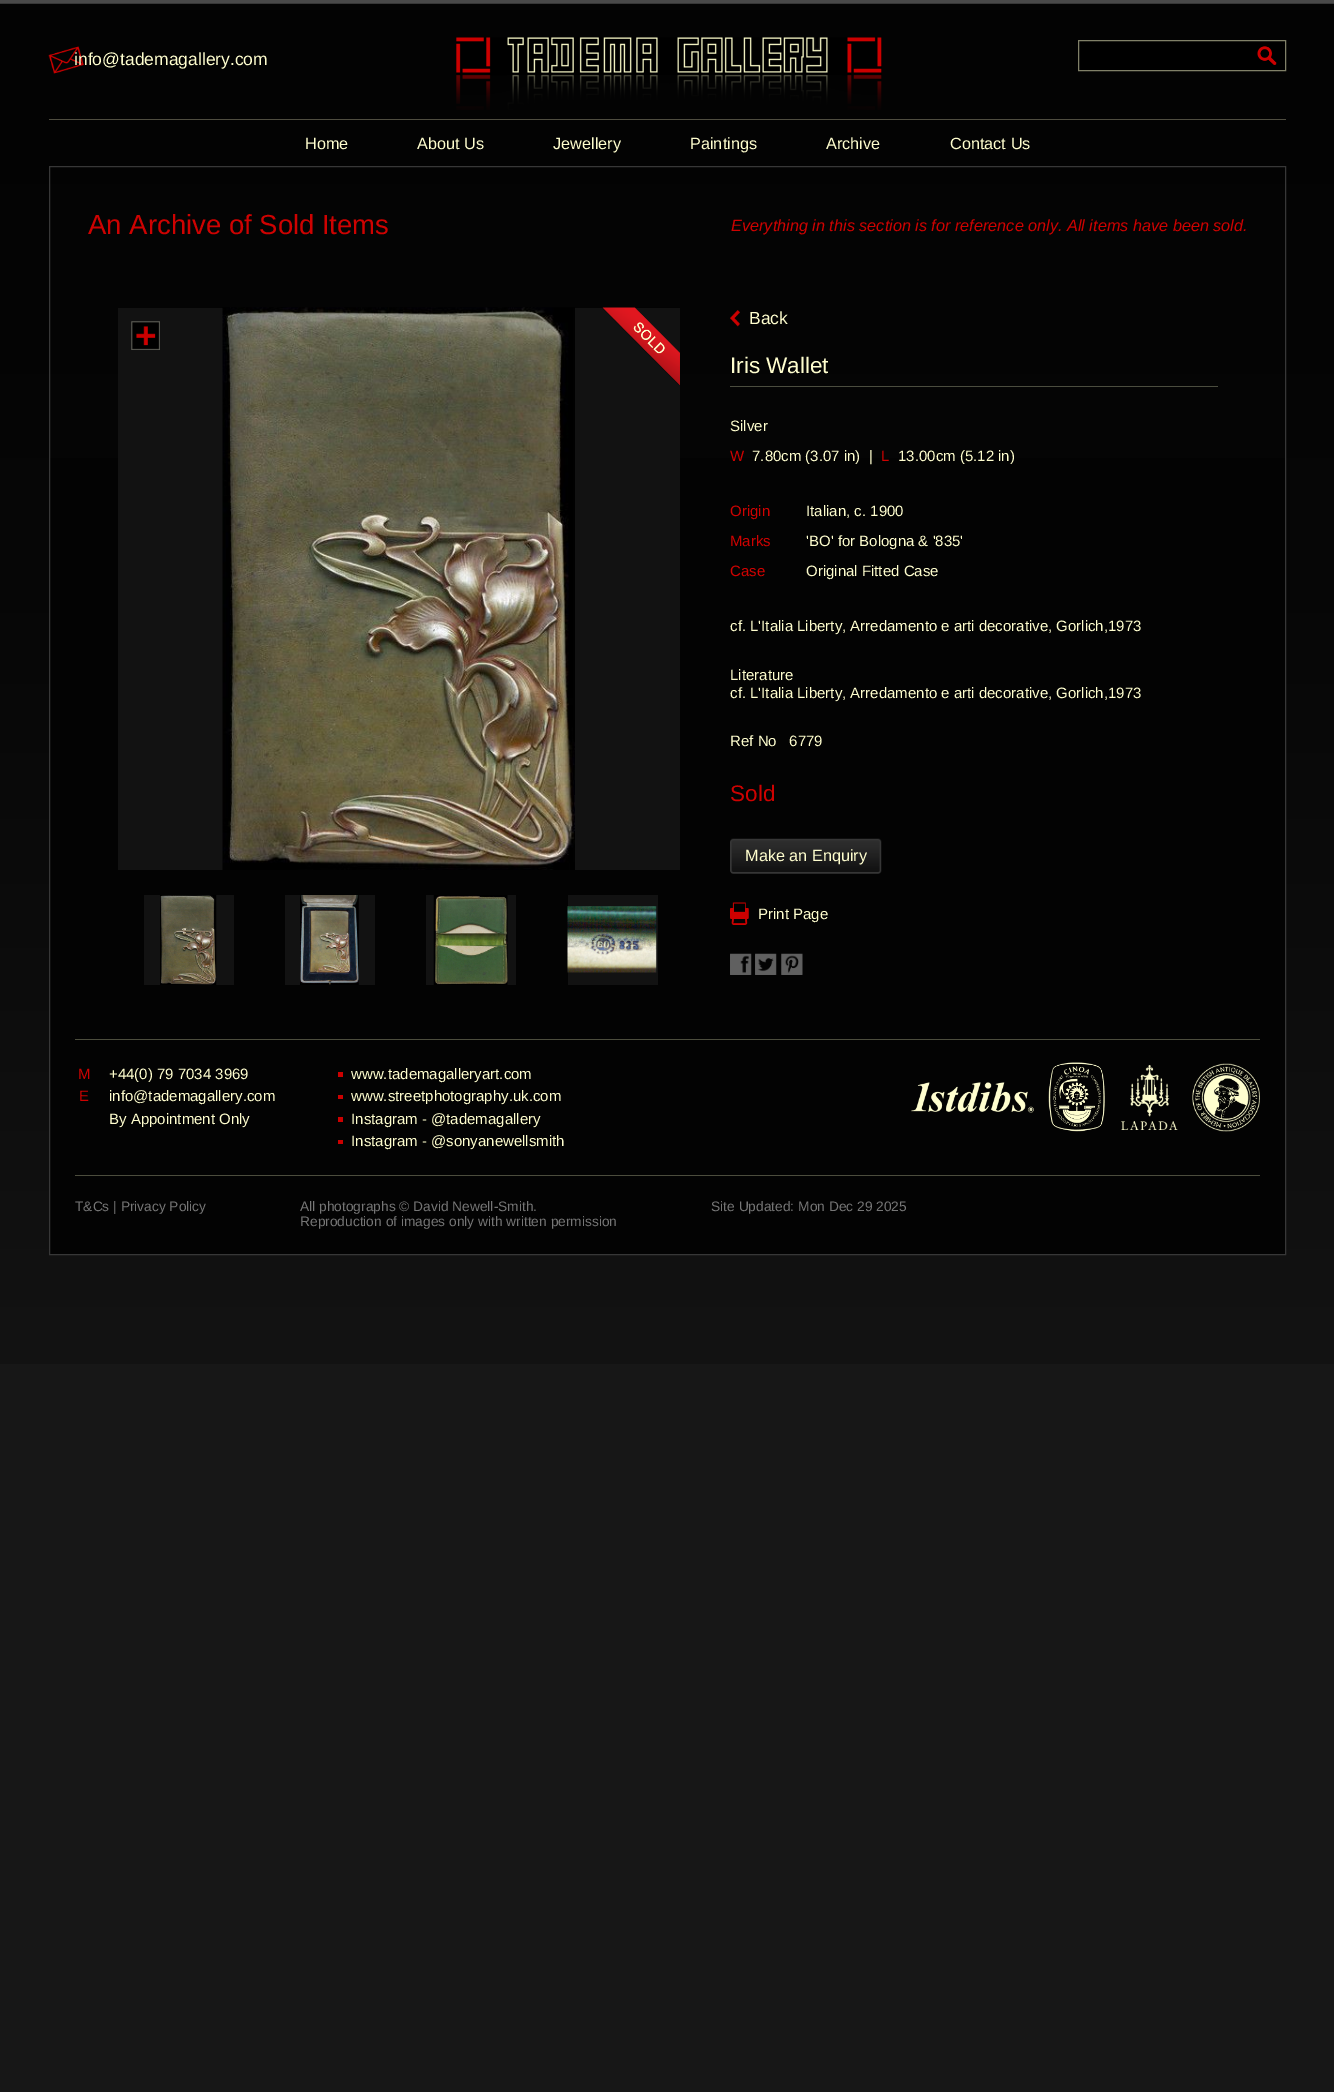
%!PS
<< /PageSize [1334 2092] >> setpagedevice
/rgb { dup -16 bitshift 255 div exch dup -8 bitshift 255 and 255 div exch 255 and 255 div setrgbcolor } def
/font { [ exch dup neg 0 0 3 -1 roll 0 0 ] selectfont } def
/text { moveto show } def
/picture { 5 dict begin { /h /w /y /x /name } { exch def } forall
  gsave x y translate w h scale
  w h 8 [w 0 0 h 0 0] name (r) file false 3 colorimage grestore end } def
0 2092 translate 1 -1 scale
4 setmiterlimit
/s1 { /LiberationSans-Regular 17.5 font 16#FFFECE rgb } def
/s2 { /LiberationSans-Regular 16.25 font 16#FFFECE rgb } def
/s3 { /LiberationSans-Regular 27.5 font 16#CE0201 rgb } def
/s4 { /LiberationSans-Italic 16.25 font 16#CE0201 rgb } def
/s5 { /LiberationSans-Regular 22.5 font 16#FFFECE rgb } def
/s6 { /LiberationSans-Regular 15 font 16#FFFECE rgb } def
/s7 { /LiberationSans-Regular 15 font 16#CE0201 rgb } def
/s8 { /LiberationSans-Regular 22.5 font 16#CE0201 rgb } def
/s9 { /LiberationSans-Regular 13.75 font 16#767676 rgb } def
16#171717 rgb
0 0 1334 2092 rectfill
(pic1.raw) 0 0 1334 1364 picture
16#4F4D40 rgb
49 119 1237 1 rectfill
(pic2.raw) 48 46 36 28 picture
s1
(info@tademagallery.com) 74 65 text
(pic3.raw) 456 37 426 73 picture
16#000000 rgb
1078.5 40.5 moveto 1285.5 40.5 lineto 1285.5 70.5 lineto 1078.5 70.5 lineto closepath gsave fill grestore
16#808068 rgb
stroke
(pic4.raw) 1257 46 20 19 picture
s2
(Home) 305 149 text
(About Us) 417 149 text
(Jewellery) 553 149 text
(Paintings) 690 149 text
(Archive) 826 149 text
(Contact Us) 950 149 text
16#030303 rgb
50 458 1235 796 rectfill
16#373737 rgb
49.5 166.5 1236 1088 rectstroke
s3
(An Archive of Sold Items) 88 234 text
s4
(Everything in this section is for reference only. All items have been sold.) 731 231 text
16#121212 rgb
118 308 562 562 rectfill
(pic5.raw) 131 321 29 29 picture
(pic6.raw) 222 307 353 563 picture
(pic7.raw) 602 307 78 78 picture
144 895 90 90 rectfill
(pic8.raw) 160 895 57 90 picture
285 895 90 90 rectfill
(pic9.raw) 300 895 59 90 picture
426 895 90 90 rectfill
(pic10.raw) 433 895 75 90 picture
568 895 90 90 rectfill
(pic11.raw) 567 906 90 67 picture
(pic12.raw) 730 310 10 17 picture
s1
(Back) 749 324 text
s5
(Iris Wallet) 730 373 text
16#4B4D3F rgb
730 386 488 1 rectfill
s6
(Silver) 730 431 text
s7
(W) 730 461 text
s6
(7.80cm \(3.07 in\)  |) 752 461 text
s7
(L) 881 461 text
s6
(13.00cm \(5.12 in\)) 898 461 text
s7
(Origin) 730 516 text
s6
(Italian, c. 1900) 806 516 text
s7
(Marks) 730 546 text
s6
('BO' for Bologna & '835') 806 546 text
s7
(Case) 730 576 text
s6
(Original Fitted Case) 806 576 text
(cf. L'Italia Liberty, Arredamento e arti decorative, Gorlich,1973) 730 631 text
(Literature) 730 680 text
(cf. L'Italia Liberty, Arredamento e arti decorative, Gorlich,1973) 730 698 text
(Ref No   6779) 730 746 text
s8
(Sold) 730 801 text
(pic13.raw) 730 838 152 36 picture
s2
(Make an Enquiry) 745 861 text
(pic14.raw) 730 902 19 23 picture
s6
(Print Page) 758 919 text
(pic15.raw) 730 953 22 22 picture
(pic16.raw) 755 953 22 22 picture
(pic17.raw) 781 953 22 22 picture
16#4C4D3D rgb
75 1039 1185 1 rectfill
s7
(M) 78 1079 text
s6
(+44\(0\) 79 7034 3969) 109 1079 text
s7
(E) 79 1101 text
s6
(info@tademagallery.com) 109 1101 text
(By Appointment Only) 109 1124 text
16#CC0000 rgb
338 1072 5 5 rectfill
s6
(www.tademagalleryart.com) 351 1079 text
16#CC0000 rgb
338 1095 5 4 rectfill
s6
(www.streetphotography.uk.com) 351 1101 text
16#CC0000 rgb
338 1117 5 5 rectfill
s6
(Instagram - @tademagallery) 351 1124 text
16#CC0000 rgb
338 1140 5 4 rectfill
s6
(Instagram - @sonyanewellsmith) 351 1146 text
(pic18.raw) 911 1082 123 31 picture
(pic19.raw) 1048 1062 57 70 picture
(pic20.raw) 1121 1065 57 65 picture
(pic21.raw) 1192 1063 68 69 picture
16#4C4D3D rgb
75 1175 1185 1 rectfill
s9
(T&Cs | Privacy Policy) 75 1211 text
(All photographs © David Newell-Smith.) 300 1211 text
(Reproduction of images only with written permission) 300 1226 text
(Site Updated: Mon Dec 29 2025) 711 1211 text
showpage
